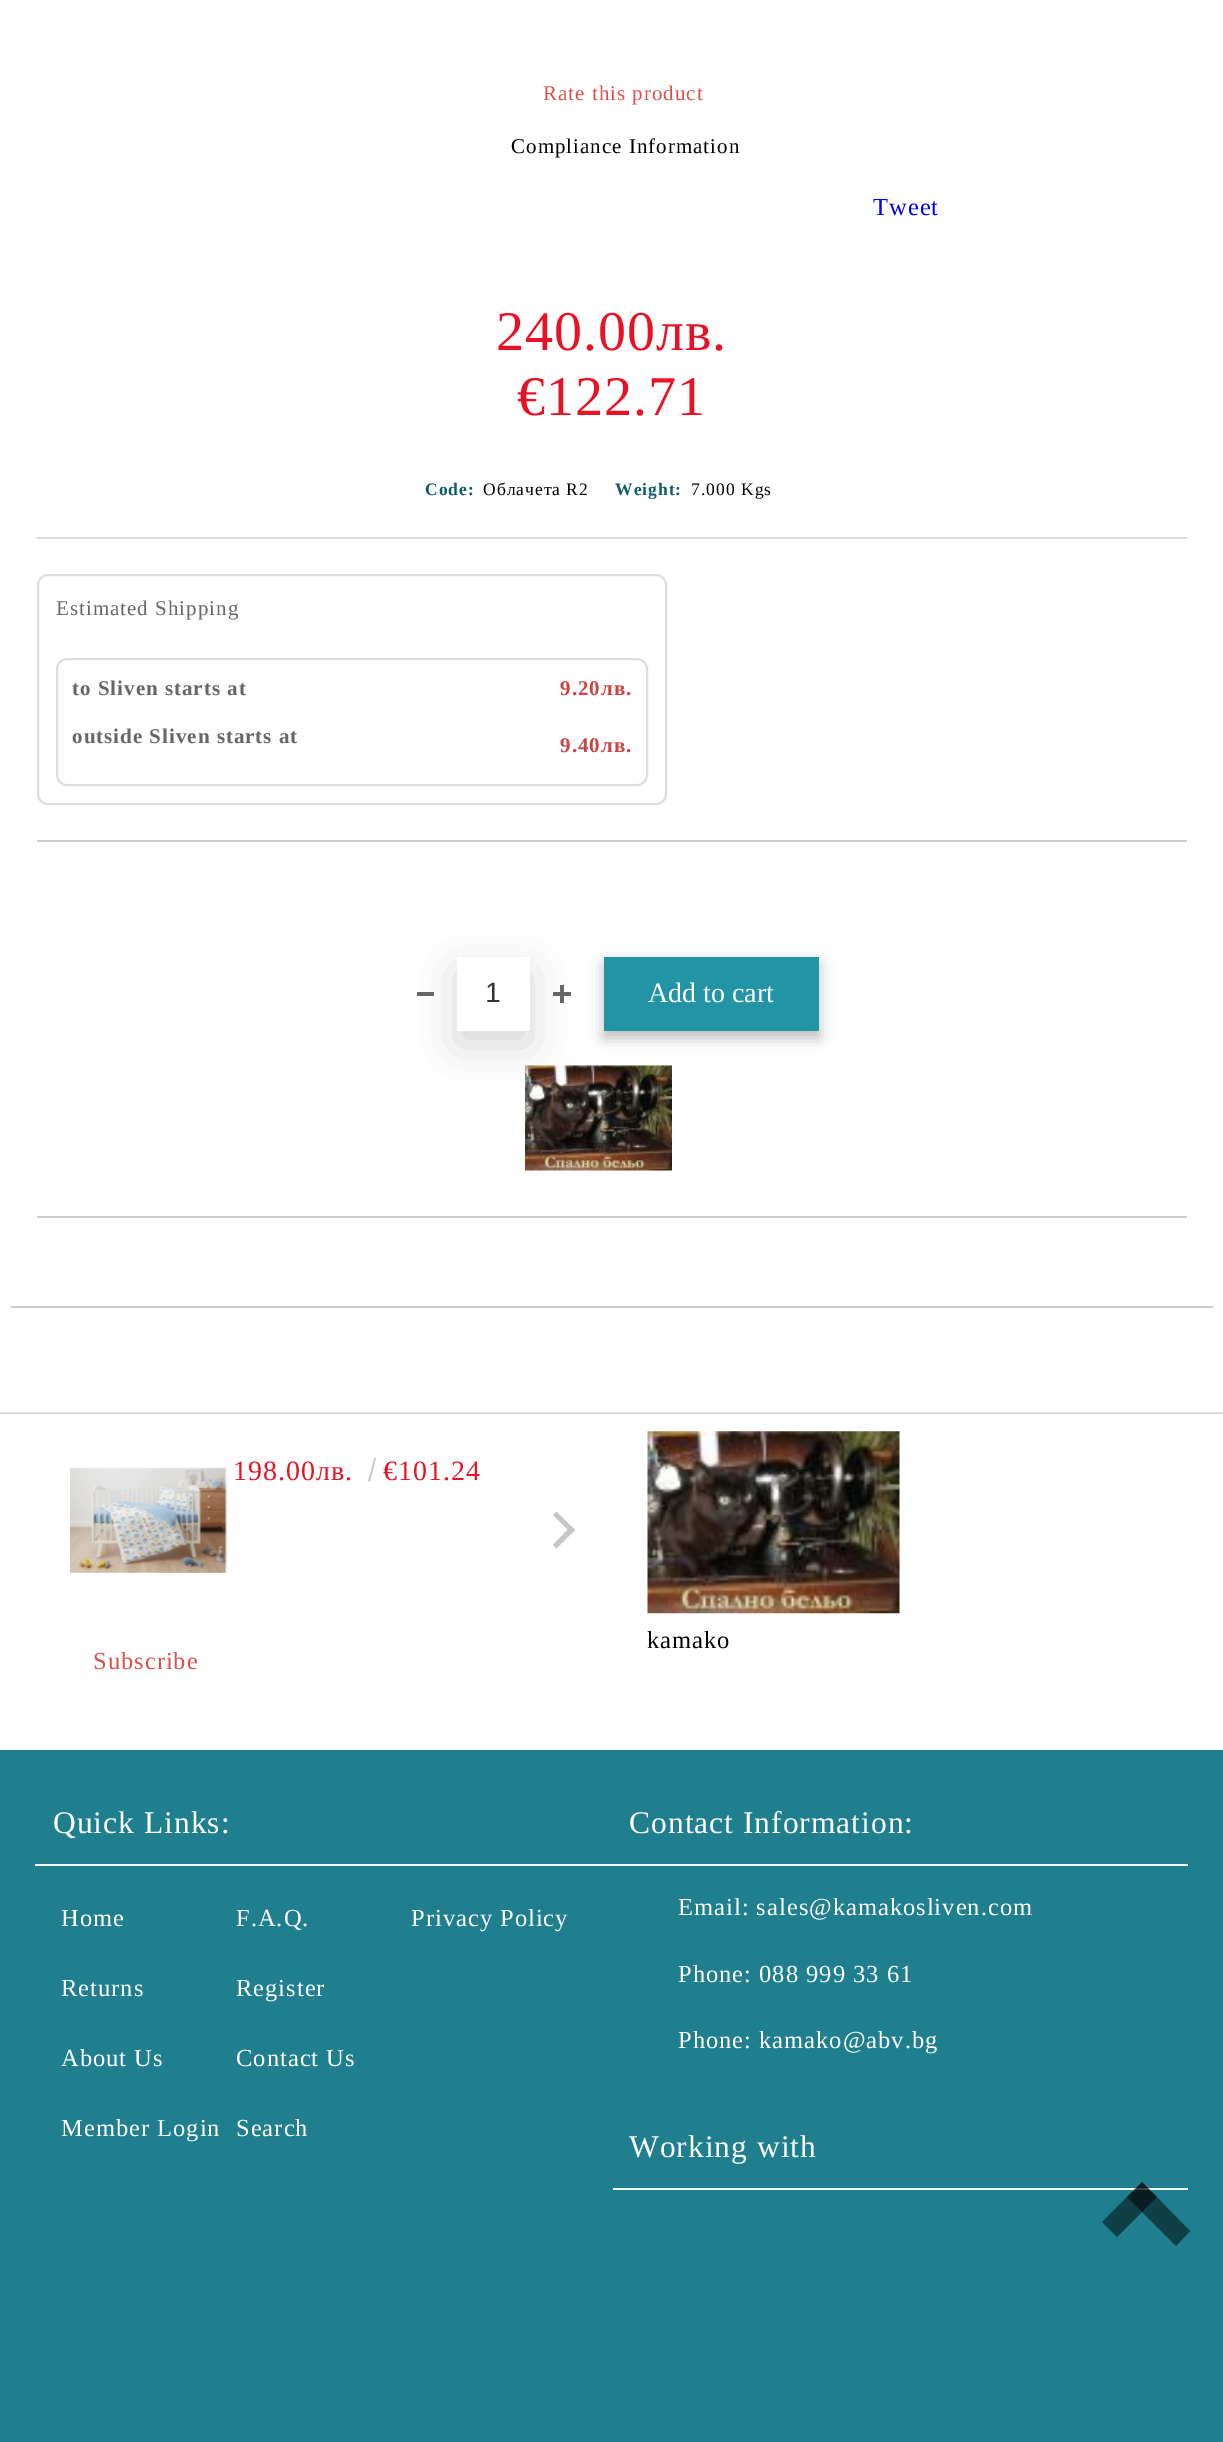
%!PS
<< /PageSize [1223 2442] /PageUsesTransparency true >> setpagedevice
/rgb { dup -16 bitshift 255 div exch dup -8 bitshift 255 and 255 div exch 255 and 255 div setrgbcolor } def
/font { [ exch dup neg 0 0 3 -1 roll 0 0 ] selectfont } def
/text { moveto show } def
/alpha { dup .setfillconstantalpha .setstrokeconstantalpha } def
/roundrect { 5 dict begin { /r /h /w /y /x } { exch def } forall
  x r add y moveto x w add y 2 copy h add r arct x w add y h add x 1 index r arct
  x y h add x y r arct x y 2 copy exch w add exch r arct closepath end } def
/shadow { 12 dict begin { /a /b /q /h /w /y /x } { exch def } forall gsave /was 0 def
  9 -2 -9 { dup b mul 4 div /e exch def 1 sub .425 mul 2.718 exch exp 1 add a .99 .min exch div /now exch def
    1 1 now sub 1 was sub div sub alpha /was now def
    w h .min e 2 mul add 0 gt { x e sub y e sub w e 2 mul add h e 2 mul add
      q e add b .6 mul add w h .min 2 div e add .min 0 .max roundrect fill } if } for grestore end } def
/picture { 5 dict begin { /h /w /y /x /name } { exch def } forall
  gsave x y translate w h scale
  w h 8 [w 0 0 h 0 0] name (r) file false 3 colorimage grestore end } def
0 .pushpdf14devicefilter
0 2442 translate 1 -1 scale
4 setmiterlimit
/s1 { /LiberationSans-Regular 28 font 16#333333 rgb } def
/s2 { /LiberationSerif-Regular 28 font 16#FFFFFF rgb } def
16#FFFFFF rgb
0 0 1223 2442 rectfill
/LiberationSerif-Regular 21 font
16#D9514B rgb
543 100 moveto 1 0 (Rate this product) ashow
16#000000 rgb
511 153 moveto 1 0 (Compliance Information) ashow
/LiberationSerif-Regular 24.5 font
16#0000EE rgb
873 215 moveto 1 0 (Tweet) ashow
/LiberationSerif-Regular 56 font
16#E81225 rgb
496 350 moveto 1 0 (240.00лв.) ashow
517 415 moveto 1 0 (€122.71) ashow
16#DDDDDD rgb
37 537 1150 2 rectfill
/LiberationSerif-Bold 17.5 font
16#0F5B68 rgb
425 495 moveto 1 0 (Code:) ashow
/LiberationSerif-Regular 17.5 font
16#000000 rgb
483 495 moveto 1 0 (Облачета R2) ashow
/LiberationSerif-Bold 17.5 font
16#0F5B68 rgb
615 495 moveto 1 0 (Weight:) ashow
/LiberationSerif-Regular 17.5 font
16#000000 rgb
691 495 moveto 1 0 (7.000) ashow
741 495 moveto 1 0 (Kgs) ashow
16#DDDDDD rgb
2 setlinewidth
38 575 628 229 10 roundrect stroke
/LiberationSerif-Regular 21 font
16#666666 rgb
56 615 moveto 1 0 (Estimated Shipping) ashow
16#DDDDDD rgb
57 659 590 126 10 roundrect stroke
/LiberationSerif-Bold 21 font
16#666666 rgb
72 695 moveto 1 0 (to Sliven starts at) ashow
16#CC4545 rgb
560 695 moveto 1 0 (9.20лв.) ashow
16#666666 rgb
72 743 moveto 1 0 (outside Sliven starts at) ashow
16#CC4545 rgb
560 752 moveto 1 0 (9.40лв.) ashow
16#CCCCCC rgb
37 840 1150 2 rectfill
16#000000 rgb
457 971 73 74 0 21 0.16 shadow
16#666666 rgb
417 992 17 4 rectfill
16#FFFFFF rgb
457 957 73 74 rectfill
s1
(1) 485 1002 text
16#666666 rgb
553 992 18 4 rectfill
560 985 4 18 rectfill
16#000000 rgb
604 964 215 74 0 7 0.26 shadow
16#2394A6 rgb
604 957 215 74 rectfill
s2
(Add to cart) 648 1002 text
(pic1.raw) 525 1065 147 106 picture
16#CCCCCC rgb
37 1216 1150 2 rectfill
11 1306 1202 2 rectfill
16#DDDDDD rgb
0 1412 1223 2 rectfill
(pic2.raw) 70 1467 157 106 picture
16#E81225 rgb
233 1480 moveto 1 0 (198.00лв.) ashow
16#CBCBCB rgb
374.5 1457.5 moveto 376 1458 lineto 370 1481.5 lineto 368 1481 lineto closepath fill
16#E81225 rgb
383 1480 moveto 1 0 (€101.24) ashow
16#C6C6C6 rgb
553 1515 moveto 556.5 1511.5 lineto 575 1530 lineto 571.5 1533.5 lineto closepath fill
553 1544.5 moveto 571.5 1526 lineto 575 1530 lineto 556.5 1548.5 lineto closepath fill
/LiberationSerif-Regular 24.5 font
16#D9514B rgb
93 1669 moveto 1 0 (Subscribe) ashow
(pic3.raw) 647 1431 253 183 picture
16#000000 rgb
647 1648 moveto 1 0 (kamako) ashow
16#1F7F8F rgb
0 1750 1223 692 rectfill
16#FFFFFF rgb
35 1864 1153 2 rectfill
/LiberationSerif-Regular 31.5 font
53 1833 moveto 1 0 (Quick Links:) ashow
/LiberationSerif-Regular 24.5 font
61 1926 moveto 1 0 (Home) ashow
61 1996 moveto 1 0 (Returns) ashow
61 2066 moveto 1 0 (About Us) ashow
61 2136 moveto 1 0 (Member Login) ashow
236 1926 moveto 1 0 (F.A.Q.) ashow
236 1996 moveto 1 0 (Register) ashow
236 2066 moveto 1 0 (Contact Us) ashow
236 2136 moveto 1 0 (Search) ashow
411 1926 moveto 1 0 (Privacy Policy) ashow
/LiberationSerif-Regular 31.5 font
629 1833 moveto 1 0 (Contact Information:) ashow
/LiberationSerif-Regular 24.5 font
678 1915 moveto 1 0 (Email: sales@kamakosliven.com) ashow
678 1982 moveto 1 0 (Phone: 088 999 33 61) ashow
678 2048 moveto 1 0 (Phone: kamako@abv.bg) ashow
613 2188 575 2 rectfill
/LiberationSerif-Regular 31.5 font
629 2157 moveto 1 0 (Working with) ashow
0.5 alpha
16#000000 rgb
1117 2237 moveto 1102 2222 lineto 1142 2182 lineto 1157 2197 lineto closepath fill
1176 2246 moveto 1127 2197 lineto 1142 2182 lineto 1190 2231 lineto closepath fill
.poppdf14devicefilter showpage
